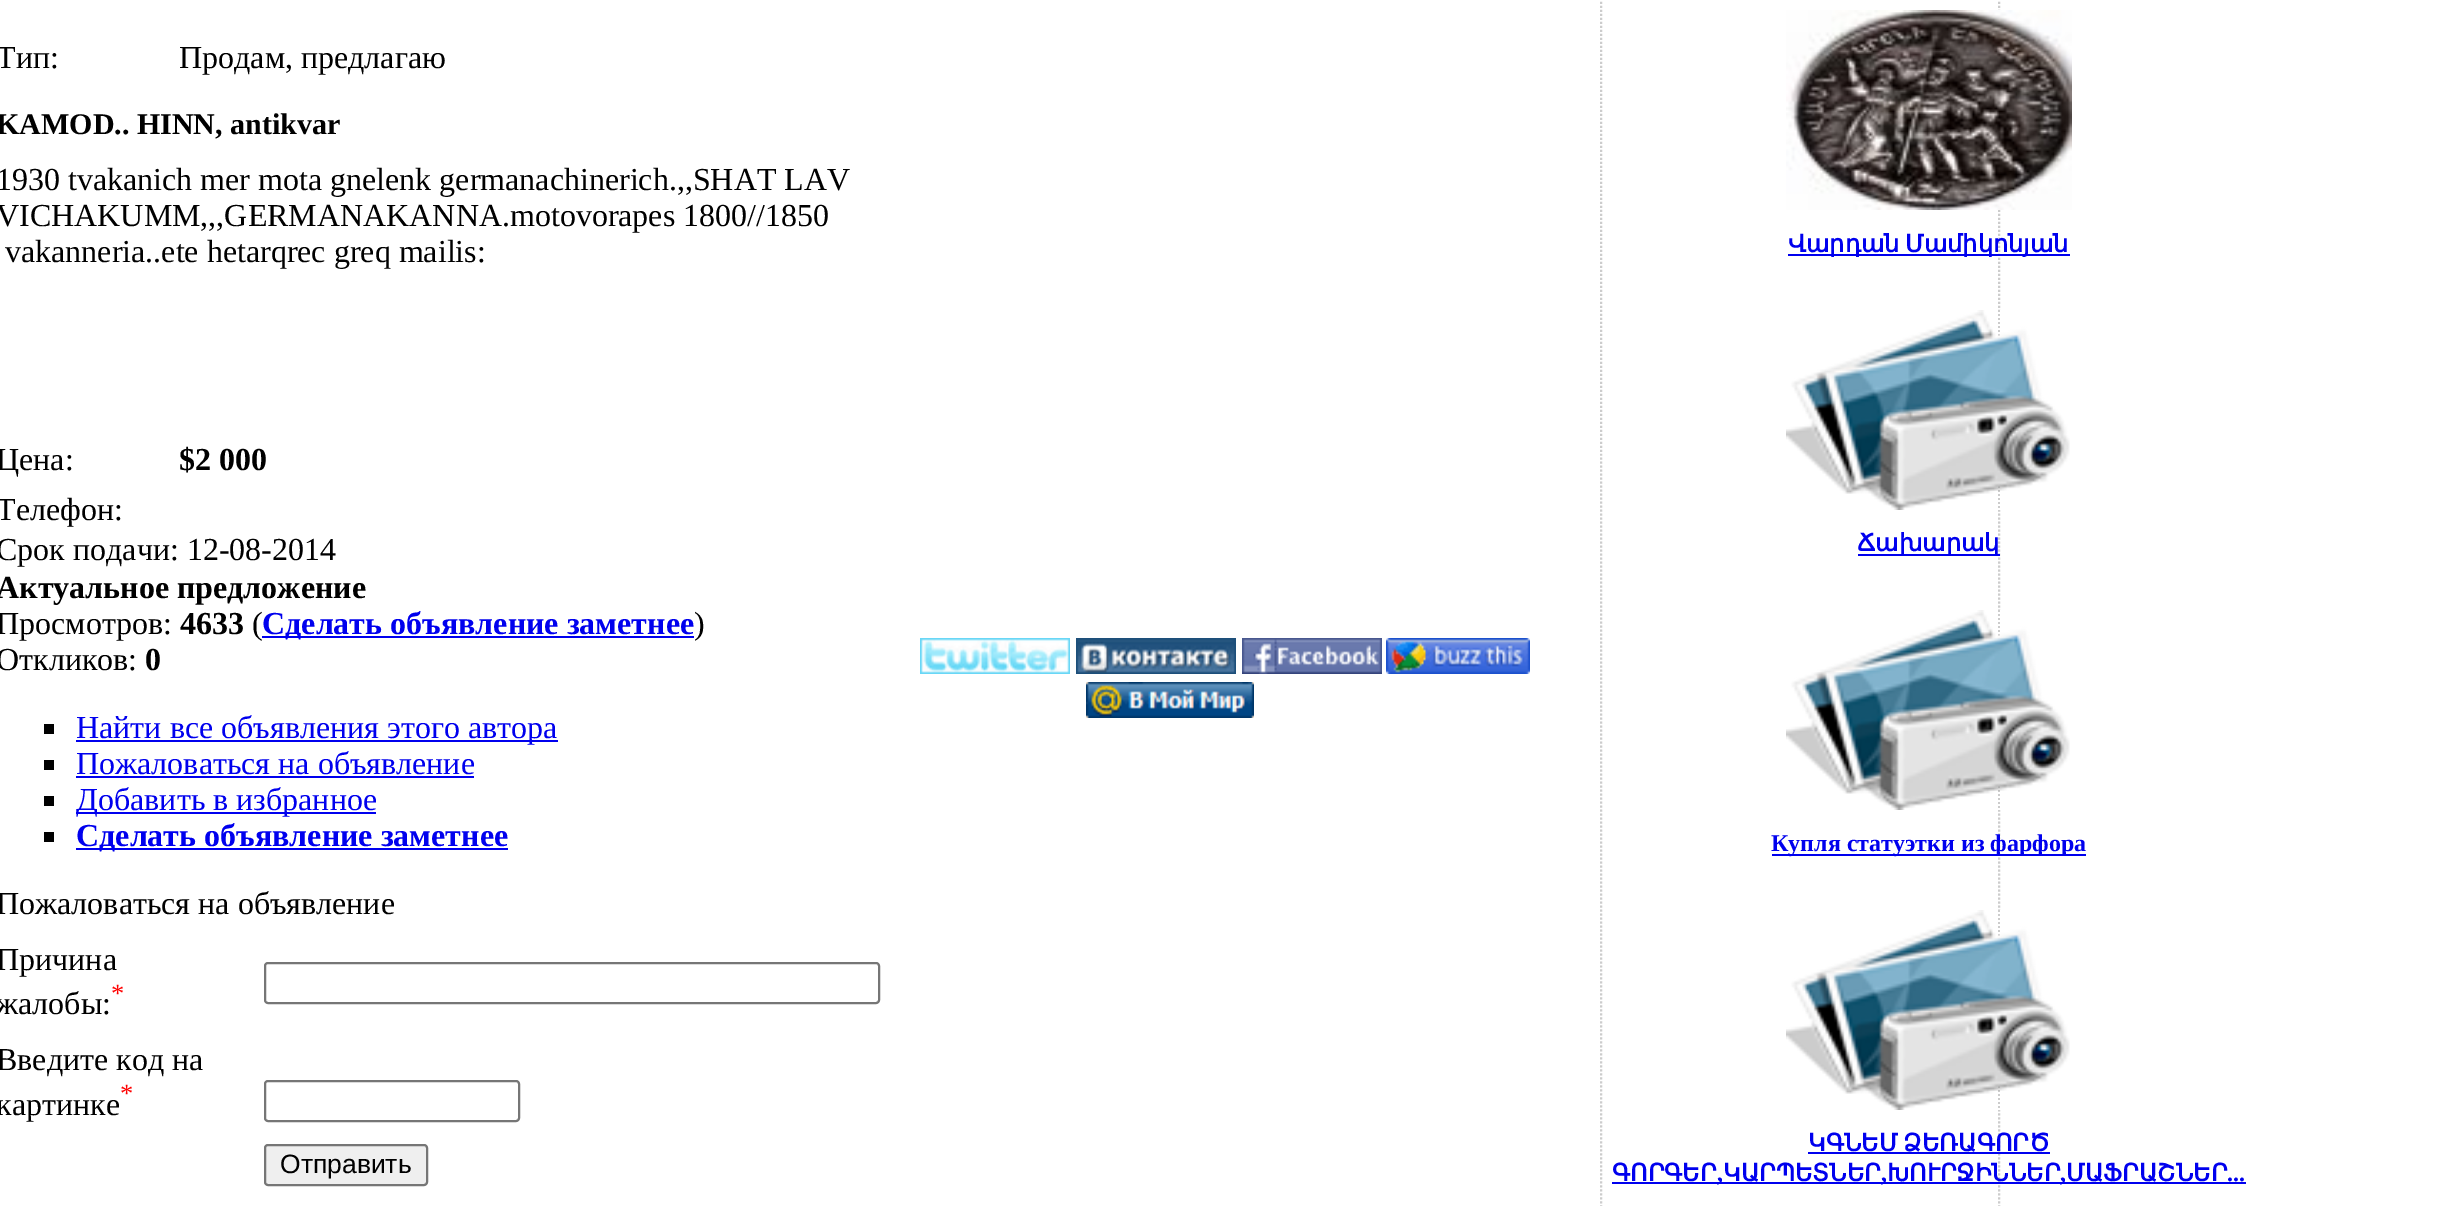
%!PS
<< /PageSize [2452 1206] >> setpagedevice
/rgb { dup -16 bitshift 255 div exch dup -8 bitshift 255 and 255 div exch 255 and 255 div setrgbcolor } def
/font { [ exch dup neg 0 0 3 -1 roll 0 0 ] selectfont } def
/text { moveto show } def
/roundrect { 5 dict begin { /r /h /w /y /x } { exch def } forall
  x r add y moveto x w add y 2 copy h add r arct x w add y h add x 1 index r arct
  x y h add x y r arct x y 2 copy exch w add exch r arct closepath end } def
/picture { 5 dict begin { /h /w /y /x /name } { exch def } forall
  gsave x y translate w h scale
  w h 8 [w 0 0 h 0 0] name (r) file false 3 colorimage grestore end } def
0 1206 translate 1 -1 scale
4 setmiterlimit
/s1 { /LiberationSerif-Regular 32 font 16#000000 rgb } def
/s2 { /LiberationSerif-Bold 30 font 16#000000 rgb } def
/s3 { /LiberationSerif-Bold 32 font 16#000000 rgb } def
/s4 { /LiberationSerif-Bold 32 font 16#0000EE rgb } def
/s5 { /LiberationSerif-Regular 32 font 16#0000EE rgb } def
/s6 { /LiberationSerif-Regular 26.5 font 16#FF0000 rgb } def
/s7 { /LiberationSans-Regular 26.5 font 16#000000 rgb } def
/s8 { /DejaVuSans-Bold 24 font 16#0000EE rgb } def
/s9 { /LiberationSerif-Bold 24 font 16#0000EE rgb } def
16#FFFFFF rgb
0 0 2452 1206 rectfill
s1
(Тип:) -4 68 text
(Продам, предлагаю) 179 68 text
s2
(KAMOD.. HINN, antikvar) -4 134 text
s1
(1930 tvakanich mer mota gnelenk germanachinerich.,,SHAT LAV) -4 190 text
(VICHAKUMM,,,GERMANAKANNA.motovorapes 1800//1850) -4 226 text
(vakanneria..ete hetarqrec greq mailis:) 5 262 text
(Цена:) -4 470 text
s3
($2 000) 179 470 text
s1
(Телефон:) -4 520 text
(Срок подачи: 12-08-2014) -4 560 text
s3
(Актуальное предложение) -4 598 text
s1
(Просмотров:) -4 634 text
s3
(4633) 180 634 text
s1
(\() 252 634 text
16#0000EE rgb
262 636 432 2 rectfill
s4
(Сделать объявление заметнее) 262 634 text
s1
(\)) 694 634 text
(Откликов:) -4 670 text
s3
(0) 145 670 text
44 724 10 10 rectfill
16#0000EE rgb
76 740 482 2 rectfill
s5
(Найти все объявления этого автора) 76 738 text
16#000000 rgb
44 760 10 10 rectfill
s5
(Пожаловаться на объявление) 76 774 text
76 776 398 2 rectfill
16#000000 rgb
44 796 10 10 rectfill
16#0000EE rgb
76 812 300 2 rectfill
(Добавить в избранное) 76 810 text
16#000000 rgb
44 832 10 10 rectfill
16#0000EE rgb
76 848 432 2 rectfill
s4
(Сделать объявление заметнее) 76 846 text
s1
(Пожаловаться на объявление) -4 914 text
(Причина) -4 970 text
s6
(*) 111 1002 text
s1
(жалобы:) -4 1014 text
16#767676 rgb
2 setlinewidth
265 963 614 40 3 roundrect stroke
s1
(Введите код на) -4 1070 text
s6
(*) 120 1102 text
s1
(картинке) -4 1115 text
16#767676 rgb
265 1081 254 40 3 roundrect stroke
16#EFEFEF rgb
265 1145 162 40 3 roundrect gsave fill grestore
16#767676 rgb
stroke
s7
(Отправить) 280 1173 text
(pic1.raw) 920 638 150 36 picture
(pic2.raw) 1076 638 160 36 picture
(pic3.raw) 1242 638 140 36 picture
(pic4.raw) 1386 638 144 36 picture
(pic5.raw) 1086 682 168 36 picture
16#CCCCCC rgb
[2 2] 0 setdash
1999 -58 moveto 1999 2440 lineto stroke
1601 -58 moveto 1601 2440 lineto stroke
(pic6.raw) 1786 10 286 200 picture
16#0000EE rgb
1788 254 282 2 rectfill
/DejaVuSans-Bold 24 font
1788 252 moveto -2 0 32 (Վարդան Մամիկոնյան) widthshow
(pic7.raw) 1786 310 284 200 picture
1858 554 142 2 rectfill
(Ճախարակ) 1857 551 text
(pic8.raw) 1786 610 284 200 picture
1772 854 314 2 rectfill
s9
(Купля статуэтки из фарфора) 1771 851 text
(pic9.raw) 1786 910 284 200 picture
/DejaVuSans-Bold 24 font
1808 1151 moveto -2 0 32 (ԿԳՆԵՄ ՁԵՌԱԳՈՐԾ) widthshow
1808 1152 242 2 rectfill
(ԳՈՐԳԵՐ) 1612 1181 text
1612 1182 634 2 rectfill
s9
(,) 1717 1181 text
s8
(ԿԱՐՊԵՏՆԵՐ) 1723 1181 text
s9
(,) 1881 1181 text
s8
(ԽՈՒՐՋԻՆՆԵՐ) 1887 1181 text
s9
(,) 2060 1181 text
s8
(ՄԱՖՐԱՇՆԵՐ) 2066 1181 text
s9
(...) 2227 1181 text
showpage
